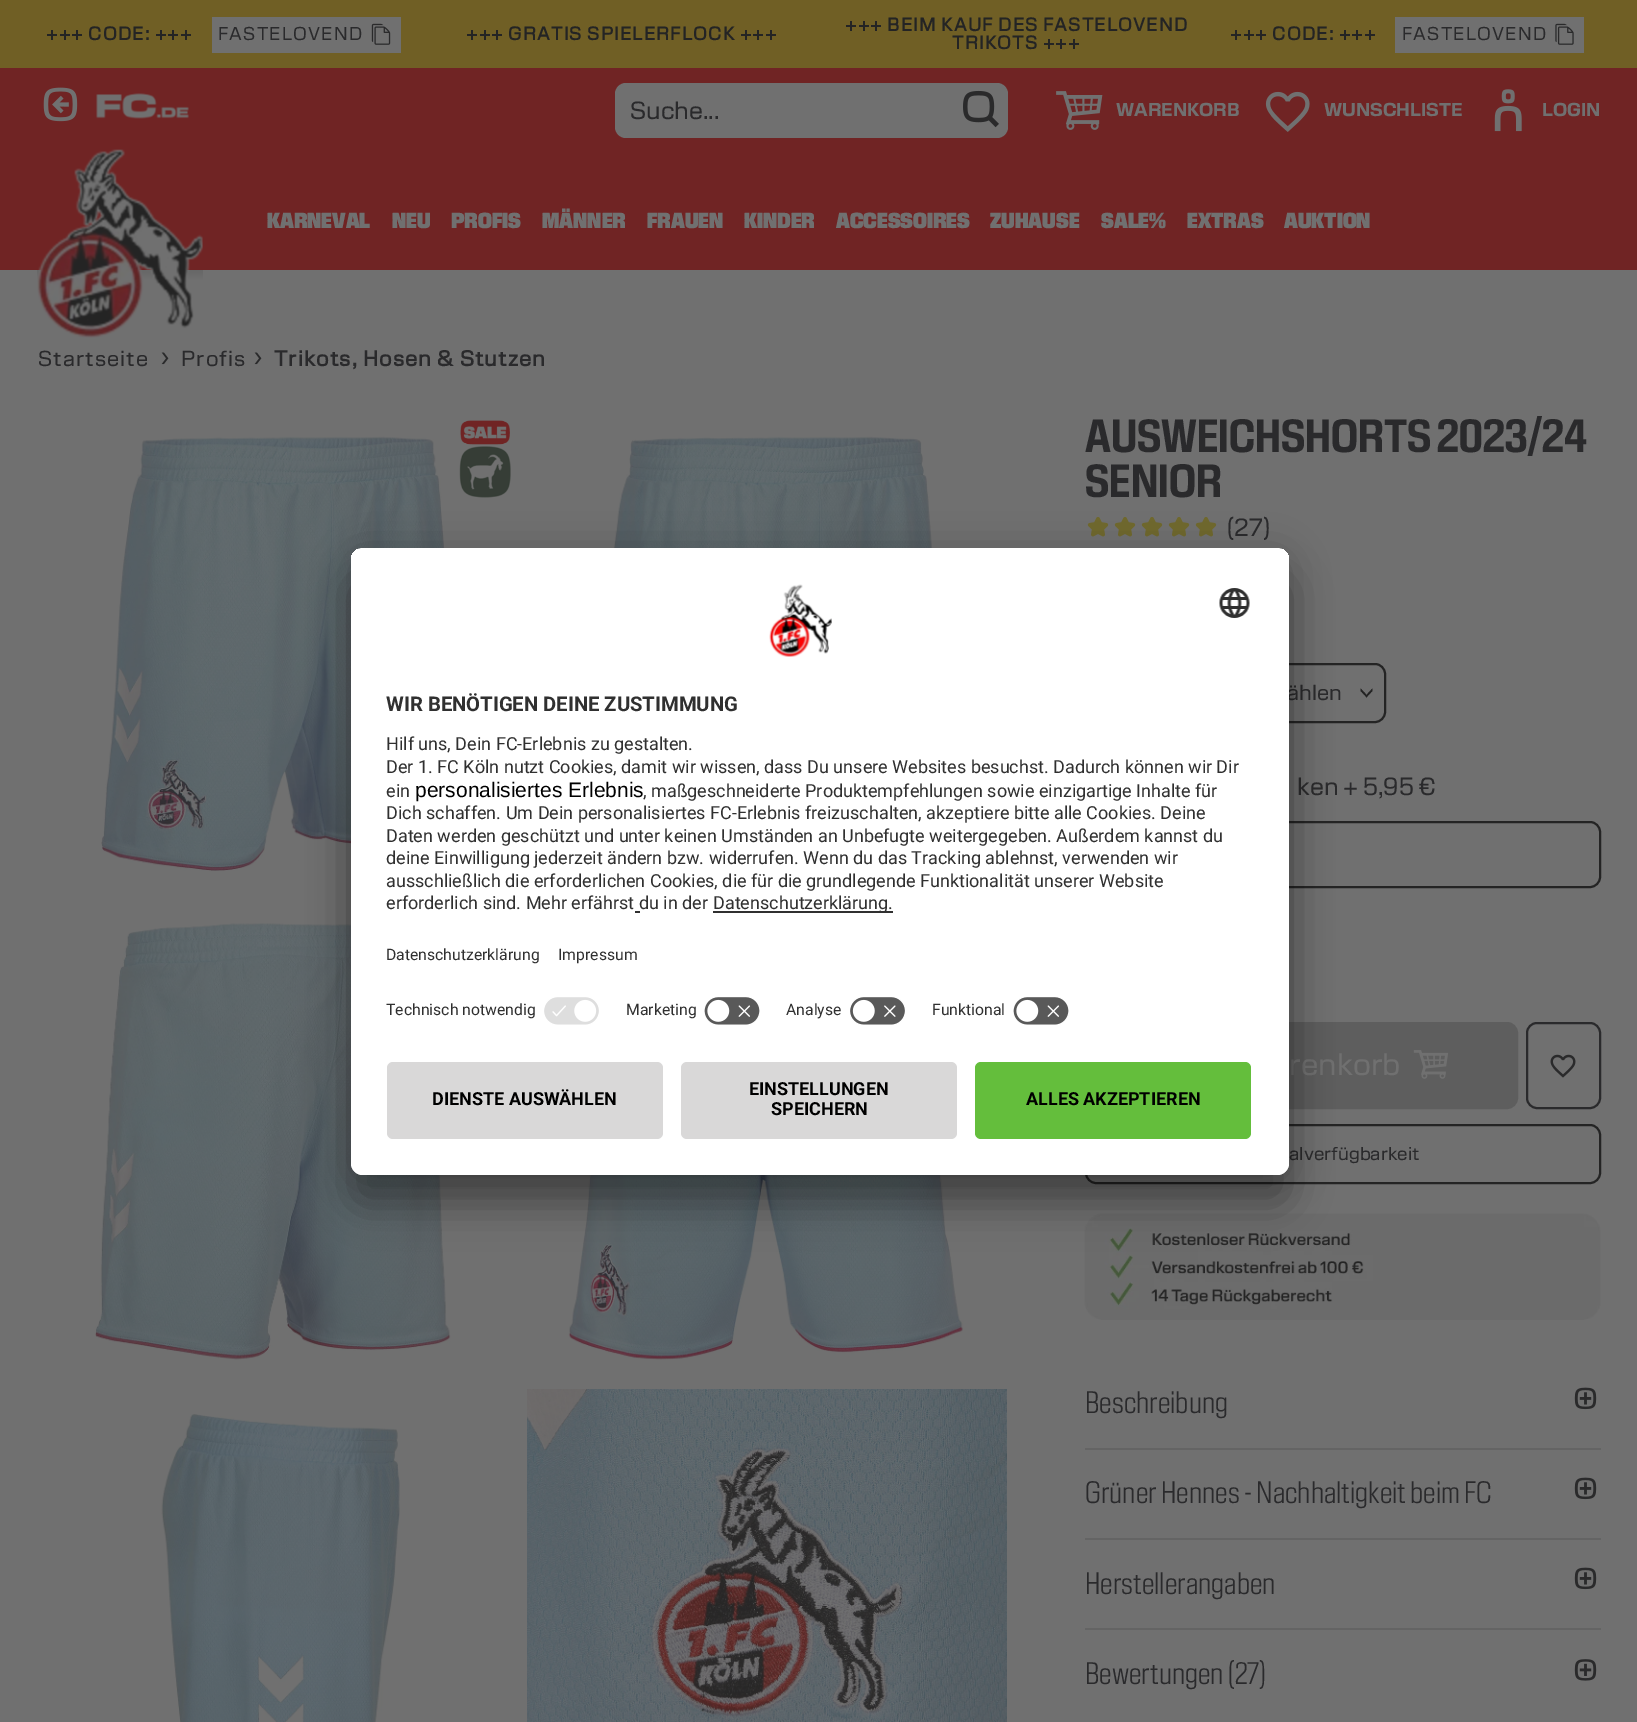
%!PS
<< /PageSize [1637 1722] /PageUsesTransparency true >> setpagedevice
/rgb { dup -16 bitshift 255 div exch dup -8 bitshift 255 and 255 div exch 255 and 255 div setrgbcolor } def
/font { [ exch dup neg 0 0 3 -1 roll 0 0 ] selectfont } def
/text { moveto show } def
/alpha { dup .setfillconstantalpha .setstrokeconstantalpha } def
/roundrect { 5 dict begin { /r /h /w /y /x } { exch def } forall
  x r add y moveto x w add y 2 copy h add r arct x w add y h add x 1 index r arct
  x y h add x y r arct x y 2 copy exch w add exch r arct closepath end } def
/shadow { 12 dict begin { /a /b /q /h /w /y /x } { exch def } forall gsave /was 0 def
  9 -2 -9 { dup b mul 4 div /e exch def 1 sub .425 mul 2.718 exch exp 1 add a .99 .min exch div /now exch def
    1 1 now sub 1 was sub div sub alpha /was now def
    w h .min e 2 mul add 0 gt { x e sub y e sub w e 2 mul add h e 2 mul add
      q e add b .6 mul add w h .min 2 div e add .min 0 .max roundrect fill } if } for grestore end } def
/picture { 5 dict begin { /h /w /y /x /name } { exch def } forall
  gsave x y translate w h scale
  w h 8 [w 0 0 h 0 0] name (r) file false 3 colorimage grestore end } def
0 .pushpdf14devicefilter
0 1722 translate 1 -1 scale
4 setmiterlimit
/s1 { /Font-Regular 24 font 16#2A2A2C rgb } def
/s2 { /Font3-Bold 18 font 16#707070 rgb } def
/s3 { /Font-Black 21 font 16#707070 rgb } def
/s4 { /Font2-Bold 45 font 16#2A2A2C rgb } def
/s5 { /Font-Regular 21 font 16#2A2A2C rgb } def
/s6 { /Font-Regular 30 font 16#707070 rgb } def
/s7 { /Font-Regular 18 font 16#2A2A2C rgb } def
/s8 { /Font-Light 30 font 16#2A2A2C rgb } def
/s9 { /Roboto-Bold 20.25 font 16#303030 rgb } def
/s10 { /Roboto-Regular 18 font 16#303030 rgb } def
/s11 { /LiberationSans-Regular 21 font 16#000000 rgb } def
/s12 { /Roboto-Regular 15.75 font 16#303030 rgb } def
/s13 { /Roboto-Bold 18 font 16#000000 rgb } def
16#707070 rgb
0 0 1637 1722 rectfill
16#702424 rgb
0 68 1637 202 rectfill
16#705F25 rgb
0 0 1637 68 rectfill
/Font-Bold 18 font
16#242424 rgb
46 40 moveto 1.2 0 (+++ CODE: +++) ashow
16#707070 rgb
212 17 189 36 rectfill
/Font-Regular 18 font
16#2A2A2C rgb
218 40 moveto 1.2 0 (FASTELOVEND) ashow
(pic1.raw) 371 23 20 22 picture
/Font-Bold 18 font
16#242424 rgb
466 40 moveto 1.2 0 (+++ GRATIS SPIELERFLOCK +++) ashow
845 31 moveto 1.2 0 (+++ BEIM KAUF DES FASTELOVEND) ashow
952 49 moveto 1.2 0 (TRIKOTS +++) ashow
1230 40 moveto 1.2 0 (+++ CODE: +++) ashow
16#707070 rgb
1395 17 189 36 rectfill
/Font-Regular 18 font
16#2A2A2C rgb
1402 40 moveto 1.2 0 (FASTELOVEND) ashow
(pic2.raw) 1555 23 19 22 picture
(pic3.raw) 43 87 35 35 picture
(pic4.raw) 96 93 93 26 picture
16#707070 rgb
615 83 393 55 11 roundrect fill
s1
(Suche...) 630 119 text
(pic5.raw) 963 90 36 38 picture
(pic6.raw) 1056 91 47 39 picture
s2
(WARENKORB) 1116 116 text
(pic7.raw) 1265 91 45 41 picture
(WUNSCHLISTE) 1324 116 text
(pic8.raw) 1494 89 28 43 picture
(LOGIN) 1542 116 text
(pic9.raw) 37 149 166 189 picture
s3
(KARNEVAL) 267 228 text
(NEU) 392 228 text
(PROFIS) 451 228 text
(MÄNNER) 542 228 text
(FRAUEN) 647 228 text
(KINDER) 744 228 text
(ACCESSOIRES) 836 228 text
(ZUHAUSE) 990 228 text
(SALE%) 1101 228 text
(EXTRAS) 1187 228 text
(AUKTION) 1284 228 text
/Font-Regular 21 font
16#2A2A2C rgb
38 366 moveto 1.1 0 (Startseite) ashow
(pic10.raw) 161 352 8 13 picture
181 366 moveto 1.1 0 (Profis) ashow
(pic10.raw) 254 352 8 13 picture
/Font-Bold 21 font
274 366 moveto 1.1 0 (Trikots, Hosen & Stutzen) ashow
(pic11.raw) 101 436 353 435 picture
(pic12.raw) 460 420 50 25 picture
(pic13.raw) 459 446 52 52 picture
(pic14.raw) 590 436 352 112 picture
(pic15.raw) 95 923 356 437 picture
(pic16.raw) 568 1175 396 185 picture
(pic17.raw) 161 1414 239 308 picture
(pic18.raw) 527 1389 480 333 picture
s4
(AUSWEICHSHORTS 2023/24) 1085 452 text
(SENIOR) 1085 497 text
(pic19.raw) 1087 517 22 20 picture
(pic19.raw) 1114 517 22 20 picture
(pic19.raw) 1141 517 22 20 picture
(pic19.raw) 1168 517 22 20 picture
(pic19.raw) 1195 517 22 20 picture
s1
(\(27\)) 1227 536 text
(pic20.raw) 1360 688 13 10 picture
16#242424 rgb
2 setlinewidth
1192 664 193 58 10 roundrect stroke
s5
(ählen) 1287 700 text
s1
(ken + 5,95 €) 1297 795 text
16#242424 rgb
1086 822 514 65 10 roundrect stroke
16#5E5E5E rgb
1086 1023 431 85 10 roundrect gsave fill grestore
stroke
s6
(renkorb) 1289 1075 text
(pic21.raw) 1413 1050 36 29 picture
16#2A2A2C rgb
1527 1023 73 85 10 roundrect stroke
(pic22.raw) 1550 1054 26 24 picture
16#242424 rgb
1086 1125 514 58 10 roundrect stroke
s7
(alverfügbarkeit) 1289 1160 text
(pic23.raw) 1084 1213 517 107 picture
16#646464 rgb
1085 1448 516 2 rectfill
s8
(Beschreibung) 1085 1413 text
(pic24.raw) 1574 1387 23 23 picture
16#646464 rgb
1085 1538 516 2 rectfill
s8
(Grüner Hennes - Nachhaltigkeit beim FC) 1085 1503 text
(pic24.raw) 1574 1477 23 23 picture
16#646464 rgb
1085 1628 516 2 rectfill
s8
(Herstellerangaben) 1085 1594 text
(pic24.raw) 1574 1567 23 23 picture
(Bewertungen \(27\)) 1085 1684 text
(pic25.raw) 1574 1659 23 22 picture
16#000000 rgb
351 578 938 627 12 21 0.3 shadow
351 555 938 627 12 19.5 0.22 shadow
16#FFFFFF rgb
351 548 938 627 12 roundrect fill
gsave
351 548 938 627 12 roundrect clip newpath
363 548 moveto 1277 548 lineto 1283.5 548 1289 553.5 1289 560 curveto 1289 1050 lineto 351 1050 lineto 351 560 lineto 351 553.5 356.5 548 363 548 curveto closepath clip newpath
351 549 938 501 rectfill
351 549 938 441 rectfill
grestore
(pic26.raw) 769 584 63 73 picture
(pic27.raw) 1219 588 31 30 picture
s9
(WIR BENÖTIGEN DEINE ZUSTIMMUNG) 386 711 text
s10
(Hilf uns, Dein FC-Erlebnis zu gestalten.) 386 750 text
(Der 1. FC Köln nutzt Cookies, damit wir wissen, dass Du unsere Websites besuchst. Dadurch können wir Dir) 386 773 text
(ein) 386 797 text
s11
(personalisiertes Erlebnis) 415 797 text
s10
(, maßgeschneiderte Produktempfehlungen sowie einzigartige Inhalte für) 643 797 text
(Dich schaffen. Um Dein personalisiertes FC-Erlebnis freizuschalten, akzeptiere bitte alle Cookies. Deine) 386 819 text
(Daten werden geschützt und unter keinen Umständen an Unbefugte weitergegeben. Außerdem kannst du) 386 842 text
(deine Einwilligung jederzeit ändern bzw. widerrufen. Wenn du das Tracking ablehnst, verwenden wir) 386 864 text
(ausschließlich die erforderlichen Cookies, die für die grundlegende Funktionalität unserer Website) 386 887 text
(erforderlich sind. Mehr erfährst du in der) 386 909 text
635 911 5 2 rectfill
713 911 180 2 rectfill
(Datenschutzerklärung.) 713 909 text
s12
(Datenschutzerklärung) 386 960 text
(Impressum) 558 960 text
(Technisch notwendig) 386 1015 text
(pic28.raw) 544 997 55 28 picture
(Marketing) 626 1015 text
(pic29.raw) 704 997 56 28 picture
(Analyse) 786 1015 text
(pic30.raw) 850 997 55 28 picture
(Funktional) 932 1015 text
(pic29.raw) 1013 997 56 28 picture
16#FFFFFF rgb
351 1050 moveto 1289 1050 lineto 1289 1163 lineto 1289 1169.5 1283.5 1175 1277 1175 curveto 363 1175 lineto 356.5 1175 351 1169.5 351 1163 curveto closepath fill
16#D9D8D8 rgb
387 1062 276 77 6 roundrect fill
s13
(DIENSTE AUSWÄHLEN) 432 1105 text
16#D9D8D8 rgb
681 1062 276 77 6 roundrect fill
s13
(EINSTELLUNGEN) 749 1095 text
(SPEICHERN) 771 1115 text
16#64BE3C rgb
975 1062 276 77 6 roundrect fill
s13
(ALLES AKZEPTIEREN) 1026 1105 text
.poppdf14devicefilter showpage
